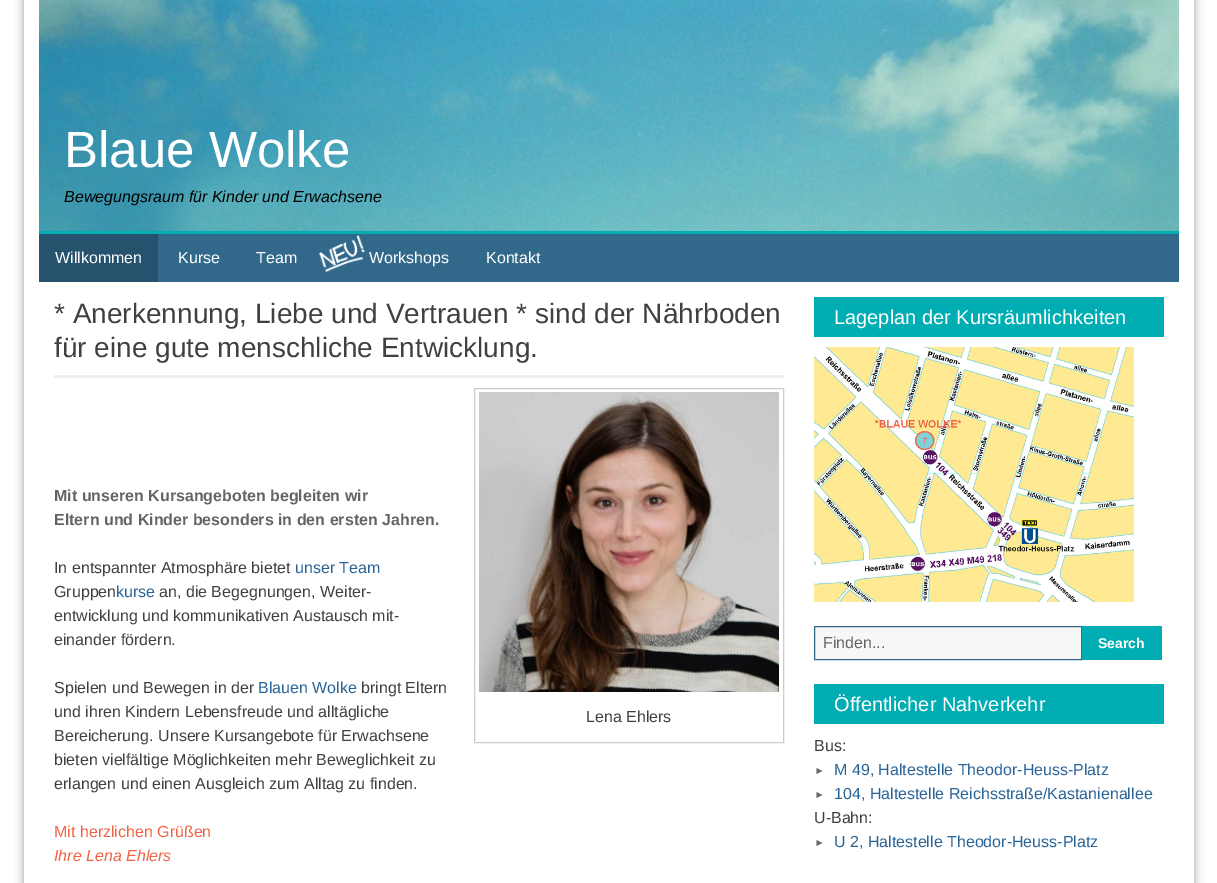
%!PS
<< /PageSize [1217 883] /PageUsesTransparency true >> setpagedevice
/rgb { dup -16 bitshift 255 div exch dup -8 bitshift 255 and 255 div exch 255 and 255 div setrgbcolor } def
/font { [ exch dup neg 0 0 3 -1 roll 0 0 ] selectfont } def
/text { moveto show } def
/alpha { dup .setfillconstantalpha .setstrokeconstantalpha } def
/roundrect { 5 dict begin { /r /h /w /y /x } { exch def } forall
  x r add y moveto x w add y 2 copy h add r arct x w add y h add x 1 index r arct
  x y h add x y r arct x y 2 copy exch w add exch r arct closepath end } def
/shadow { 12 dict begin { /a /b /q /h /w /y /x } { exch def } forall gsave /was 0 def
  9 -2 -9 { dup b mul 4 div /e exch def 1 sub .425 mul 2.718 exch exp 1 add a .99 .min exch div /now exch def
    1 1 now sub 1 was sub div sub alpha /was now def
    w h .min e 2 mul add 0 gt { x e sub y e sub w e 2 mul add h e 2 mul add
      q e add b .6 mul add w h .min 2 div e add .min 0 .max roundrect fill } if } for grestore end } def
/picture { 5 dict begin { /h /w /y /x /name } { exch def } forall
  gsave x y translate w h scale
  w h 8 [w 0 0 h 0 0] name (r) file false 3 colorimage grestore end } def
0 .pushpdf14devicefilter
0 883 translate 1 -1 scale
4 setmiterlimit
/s1 { /LiberationSans-Regular 51 font 16#FFFFFF rgb } def
/s2 { /LiberationSans-Italic 16 font 16#000000 rgb } def
/s3 { /LiberationSans-Regular 16 font 16#FFFFFF rgb } def
/s4 { /LiberationSans-Regular 28 font 16#404040 rgb } def
/s5 { /LiberationSans-Bold 16 font 16#646464 rgb } def
/s6 { /LiberationSans-Regular 16 font 16#404040 rgb } def
/s7 { /LiberationSans-Regular 16 font 16#2A6496 rgb } def
/s8 { /LiberationSans-Regular 16 font 16#F06446 rgb } def
/s9 { /LiberationSans-Italic 16 font 16#F06446 rgb } def
/s10 { /LiberationSans-Regular 20 font 16#FFFFFF rgb } def
/s11 { /LiberationSans-Regular 16 font 16#646464 rgb } def
/s12 { /LiberationSans-Bold 14 font 16#FFFFFF rgb } def
16#FFFFFF rgb
0 0 1217 883 rectfill
gsave
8 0 moveto 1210 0 lineto 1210 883 lineto 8 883 lineto closepath 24 -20 moveto 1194 -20 lineto 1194 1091 lineto 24 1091 lineto closepath eoclip newpath
16#999999 rgb
24 -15 1170 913 0 5 1 shadow
grestore
16#00ADB3 rgb
39 231 1140 3 rectfill
(pic1.raw) 39 0 1140 231 picture
s1
(Blaue Wolke) 64 167 text
s2
(Bewegungsraum für Kinder und Erwachsene) 64 202 text
16#32698B rgb
158 234 1021 48 rectfill
16#27526D rgb
39 234 119 48 rectfill
s3
(Willkommen) 55 263 text
(Kurse) 178 263 text
(Team) 256 263 text
(pic2.raw) 319 235 46 38 picture
(Workshops) 369 263 text
(Kontakt) 486 263 text
16#EEEEEE rgb
54 375 730 3 rectfill
s4
(* Anerkennung, Liebe und Vertrauen * sind der Nährboden) 54 323 text
(für eine gute menschliche Entwicklung.) 54 357 text
s5
(Mit unseren Kursangeboten begleiten wir) 54 501 text
(Eltern und Kinder besonders in den ersten Jahren.) 54 525 text
s6
(In entspannter Atmosphäre bietet) 54 573 text
s7
(unser Team) 295 573 text
s6
(Gruppen) 54 597 text
s7
(kurse) 116 597 text
s6
(an, die Begegnungen, Weiter-) 159 597 text
(entwicklung und kommunikativen Austausch mit-) 54 621 text
(einander fördern.) 54 645 text
(Spielen und Bewegen in der) 54 693 text
s7
(Blauen Wolke) 258 693 text
s6
(bringt Eltern) 361 693 text
(und ihren Kindern Lebensfreude und alltägliche) 54 717 text
(Bereicherung. Unsere Kursangebote für Erwachsene) 54 741 text
(bieten vielfältige Möglichkeiten mehr Beweglichkeit zu) 54 765 text
(erlangen und einen Ausgleich zum Alltag zu finden.) 54 789 text
16#CCCCCC rgb
474.5 388.5 309 354 rectstroke
(pic3.raw) 479 392 300 300 picture
s6
(Lena Ehlers) 586 722 text
s8
(Mit herzlichen Grüßen) 54 837 text
s9
(Ihre Lena Ehlers) 54 861 text
16#00ADB3 rgb
814 297 350 40 rectfill
s10
(Lageplan der Kursräumlichkeiten) 834 324 text
(pic4.raw) 814 347 320 255 picture
16#F7F7F7 rgb
814.5 626.5 moveto 1081.5 626.5 lineto 1081.5 659.5 lineto 814.5 659.5 lineto closepath gsave fill grestore
16#32698B rgb
stroke
s11
(Finden...) 823 648 text
16#00ADB3 rgb
1082 626 80 34 rectfill
s12
(Search) 1098 648 text
16#00ADB3 rgb
814 684 350 40 rectfill
s10
(Öffentlicher Nahverkehr) 834 711 text
s6
(Bus:) 814 751 text
16#666666 rgb
816.5 768 moveto 822 771 lineto 816.5 774 lineto closepath fill
s7
(M 49, Haltestelle Theodor-Heuss-Platz) 834 775 text
16#666666 rgb
816.5 792 moveto 822 795 lineto 816.5 798 lineto closepath fill
s7
(104, Haltestelle Reichsstraße/Kastanienallee) 834 799 text
s6
(U-Bahn:) 814 823 text
16#666666 rgb
816.5 840 moveto 822 843 lineto 816.5 846 lineto closepath fill
s7
(U 2, Haltestelle Theodor-Heuss-Platz) 834 847 text
.poppdf14devicefilter showpage
